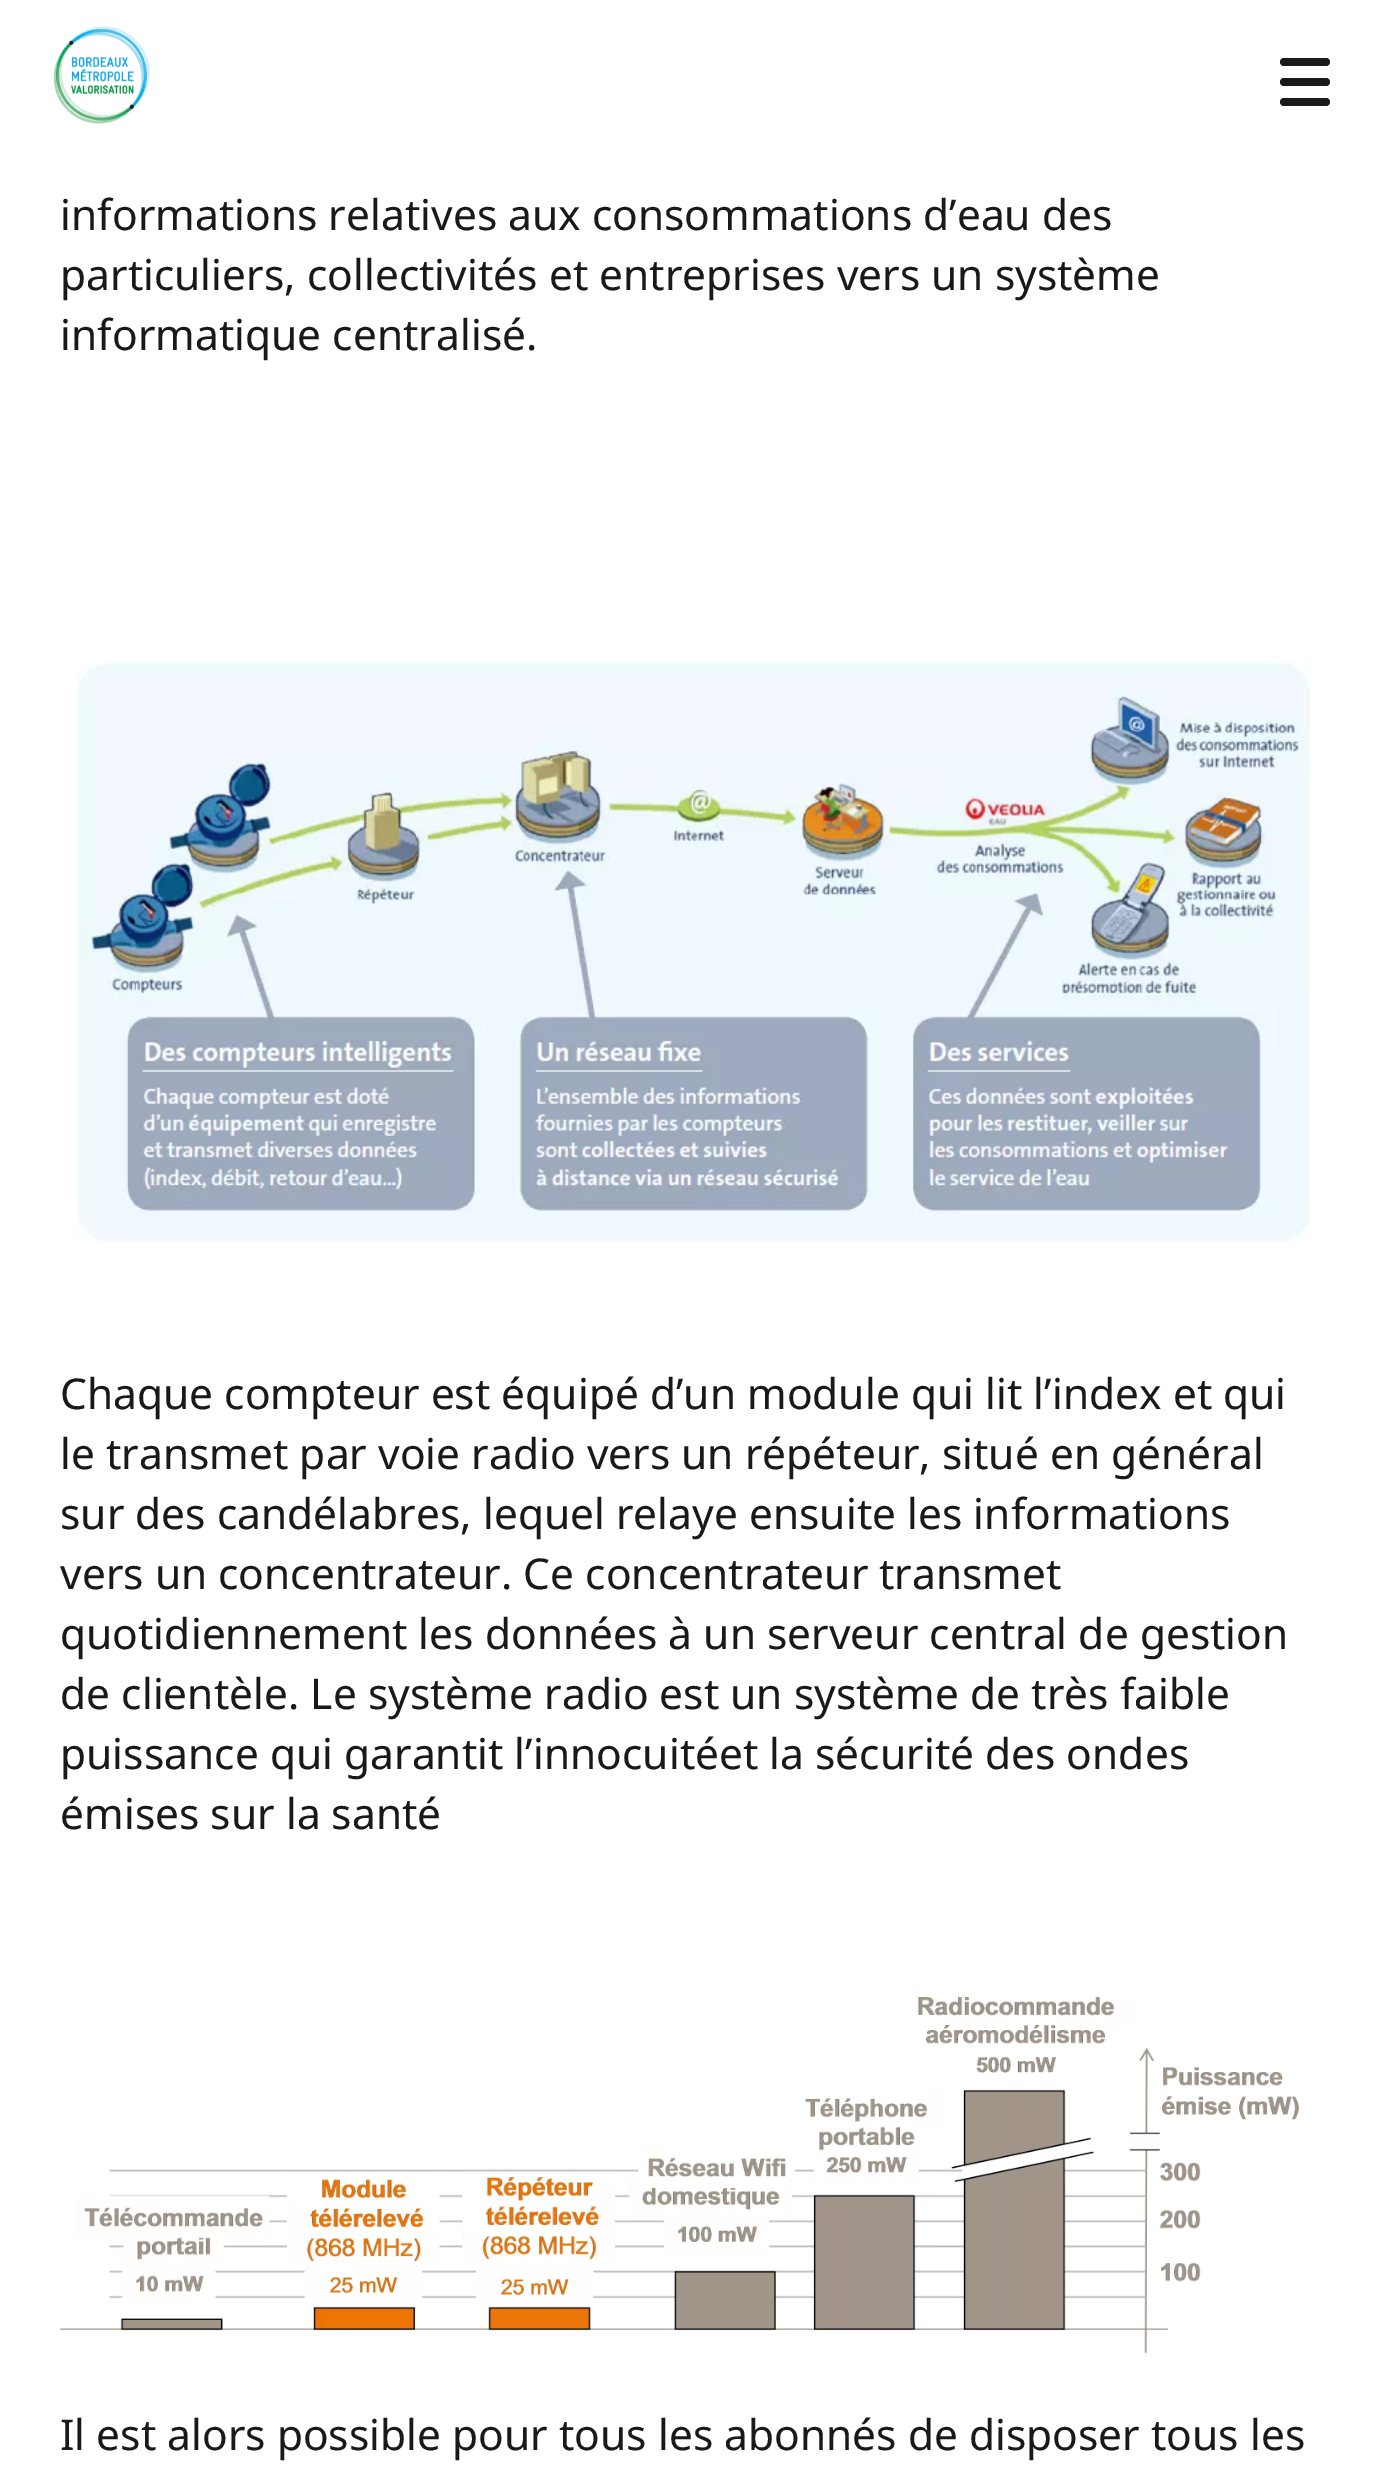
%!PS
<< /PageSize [1384 2472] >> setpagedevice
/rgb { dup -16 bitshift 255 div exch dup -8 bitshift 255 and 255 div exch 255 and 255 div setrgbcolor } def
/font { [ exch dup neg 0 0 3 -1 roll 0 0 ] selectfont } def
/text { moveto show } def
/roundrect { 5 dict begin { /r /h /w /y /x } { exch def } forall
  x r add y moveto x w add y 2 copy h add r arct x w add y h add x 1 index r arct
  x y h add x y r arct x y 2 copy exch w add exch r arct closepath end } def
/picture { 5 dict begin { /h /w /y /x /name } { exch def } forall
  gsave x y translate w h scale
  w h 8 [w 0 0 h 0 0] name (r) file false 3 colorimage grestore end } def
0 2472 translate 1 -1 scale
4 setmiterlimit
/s1 { /NotoSans-Regular 42.5 font 16#191919 rgb } def
16#FFFFFF rgb
0 0 1384 2472 rectfill
(pic1.raw) 53 26 97 98 picture
16#191919 rgb
1280 98 50 8 4 roundrect fill
1280 58 50 8 4 roundrect fill
1280 78 50 8 4 roundrect fill
s1
(informations relatives aux consommations d’eau des) 60 230 text
(particuliers, collectivités et entreprises vers un système) 60 290 text
(informatique centralisé.) 60 350 text
(pic2.raw) 76 661 1235 582 picture
(Chaque compteur est équipé d’un module qui lit l’index et qui) 60 1409 text
(le transmet par voie radio vers un répéteur, situé en général) 60 1469 text
(sur des candélabres, lequel relaye ensuite les informations) 60 1529 text
(vers un concentrateur. Ce concentrateur transmet) 60 1589 text
(quotidiennement les données à un serveur central de gestion) 60 1649 text
(de clientèle. Le système radio est un système de très faible) 60 1709 text
(puissance qui garantit l’innocuitéet la sécurité des ondes) 60 1769 text
(émises sur la santé) 60 1829 text
(pic3.raw) 60 1996 1239 357 picture
(Il est alors possible pour tous les abonnés de disposer tous les) 60 2450 text
showpage
